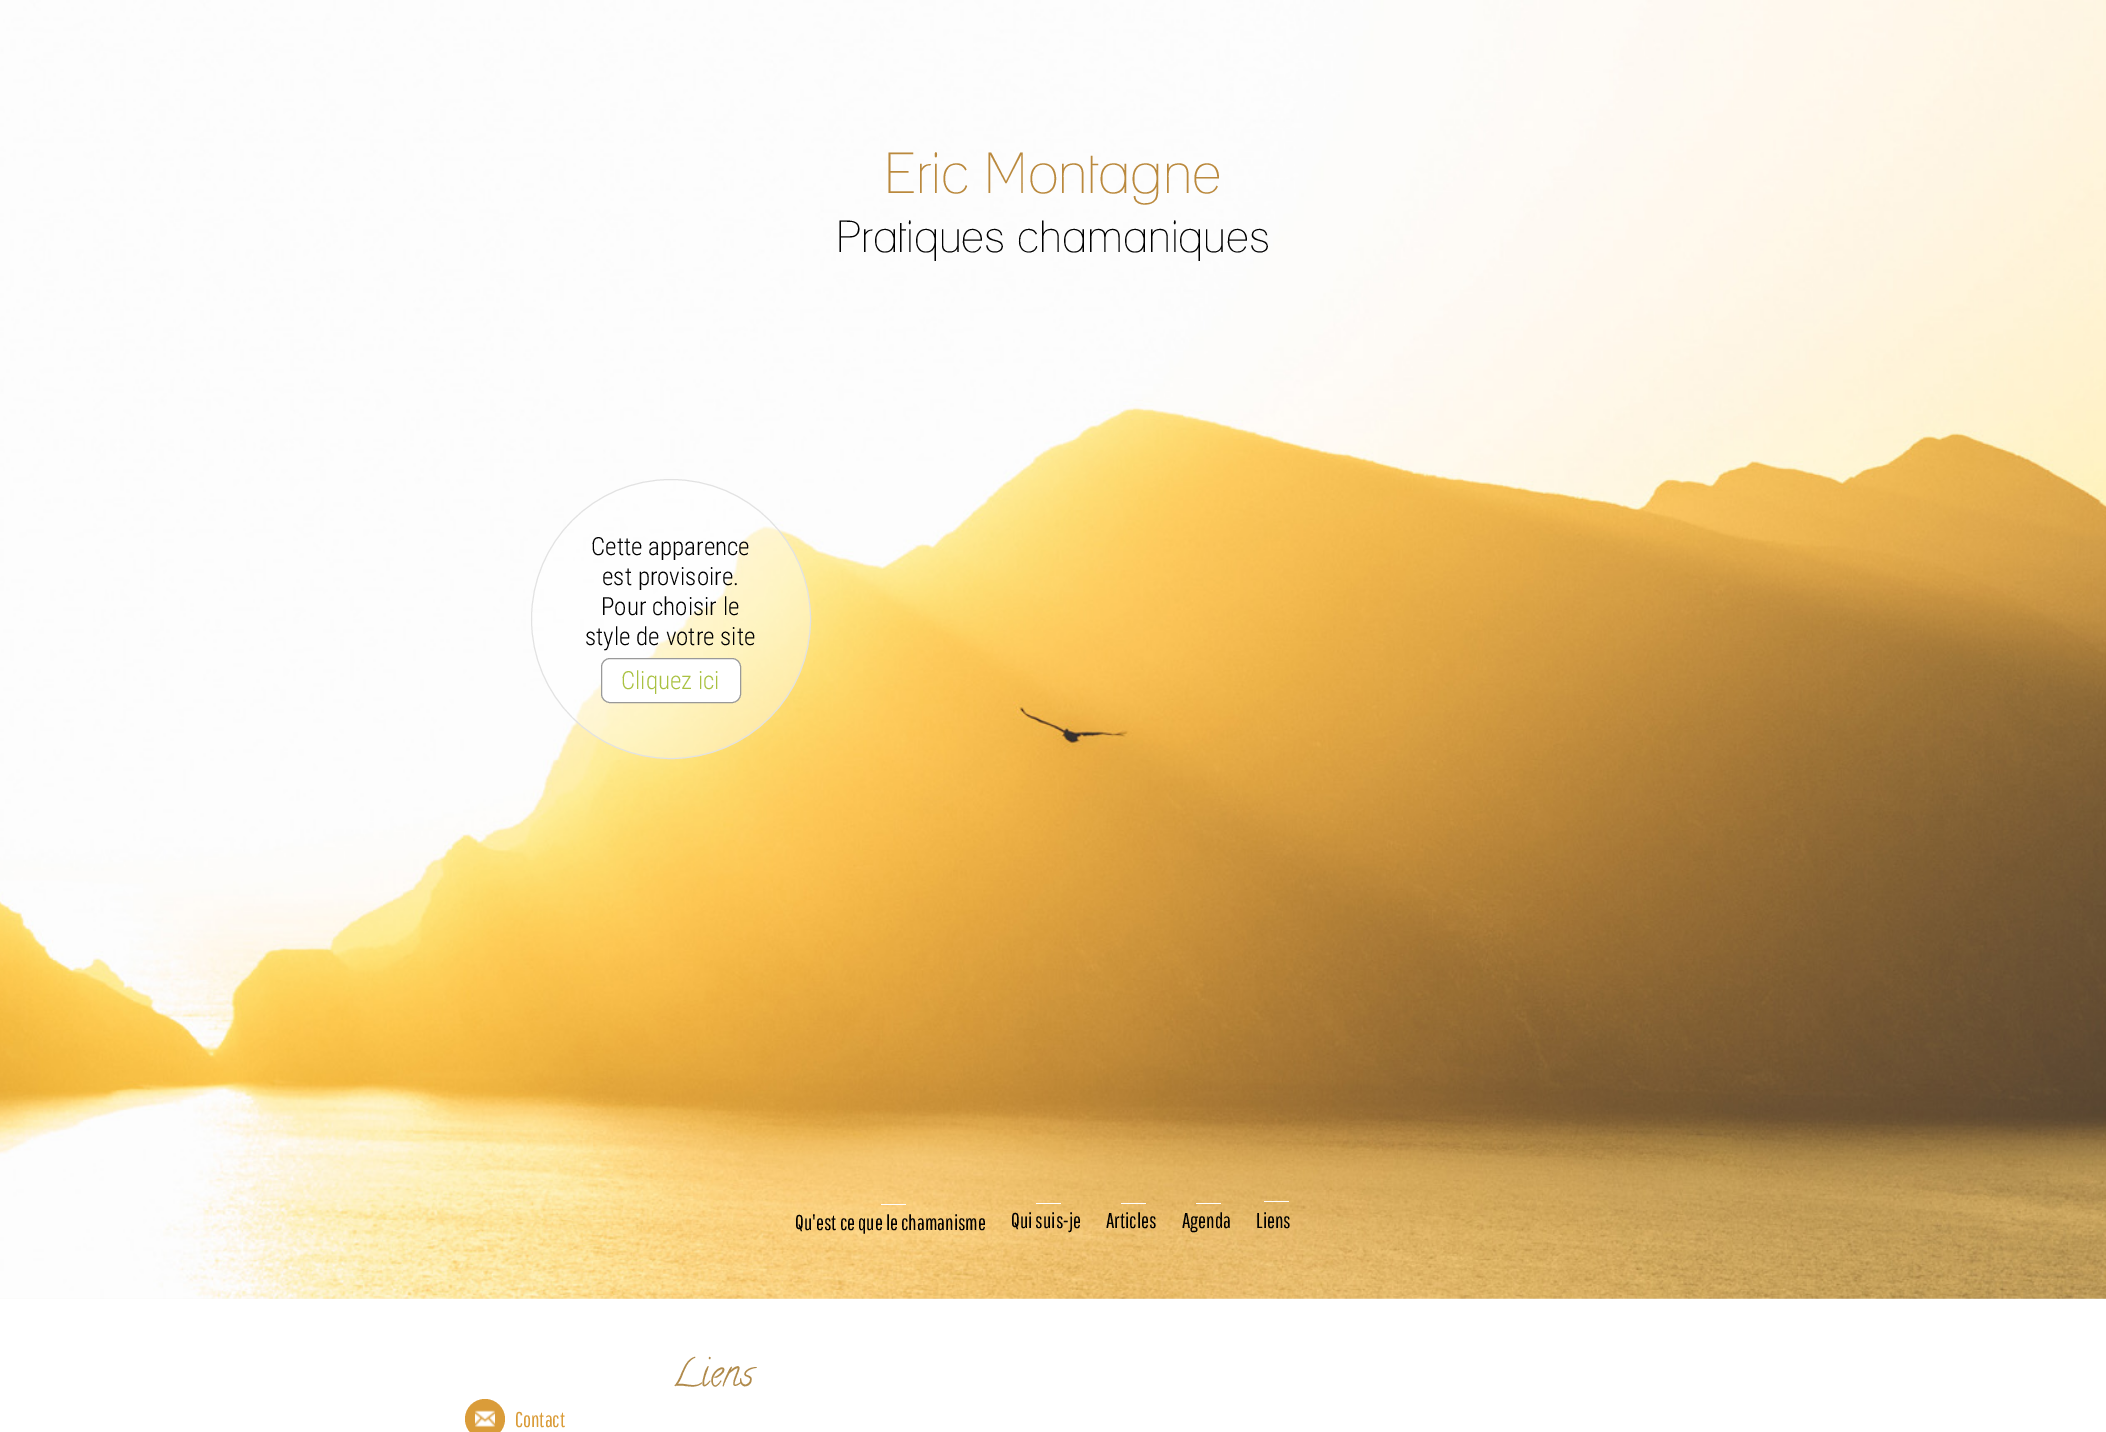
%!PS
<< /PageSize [2106 1432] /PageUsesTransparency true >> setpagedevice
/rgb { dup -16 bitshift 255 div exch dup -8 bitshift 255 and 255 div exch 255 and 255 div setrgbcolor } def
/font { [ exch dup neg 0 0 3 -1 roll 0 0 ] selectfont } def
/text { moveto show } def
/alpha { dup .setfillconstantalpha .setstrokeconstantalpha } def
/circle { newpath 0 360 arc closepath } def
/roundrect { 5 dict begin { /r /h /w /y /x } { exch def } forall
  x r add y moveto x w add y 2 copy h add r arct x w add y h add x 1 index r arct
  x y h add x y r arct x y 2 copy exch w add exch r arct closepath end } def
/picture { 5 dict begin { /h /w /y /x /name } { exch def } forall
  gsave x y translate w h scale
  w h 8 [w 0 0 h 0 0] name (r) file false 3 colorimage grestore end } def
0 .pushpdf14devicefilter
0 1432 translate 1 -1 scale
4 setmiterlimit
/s1 { /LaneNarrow-Regular 56.25 font 16#BA893D rgb } def
/s2 { /LaneNarrow-Regular 43.75 font 16#000000 rgb } def
/s3 { /PathwayGothicOne-Regular 21.25 font 16#000000 rgb } def
/s4 { /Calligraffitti-Regular 37.5 font 16#B08A4B rgb } def
/s5 { /PathwayGothicOne-Regular 21.25 font 16#DA9C39 rgb } def
/s6 { /RobotoCondensed-Light 25 font 16#000000 rgb } def
/s7 { /RobotoCondensed-Light 25 font 16#A9C141 rgb } def
16#FFFFFF rgb
0 0 2106 1432 rectfill
(pic1.raw) 0 0 2106 1299 picture
s1
(Eric Montagne) 884 193 text
s2
(Pratiques chamaniques) 836 252 text
16#FFFFFF rgb
881 1204 25 1 rectfill
s3
(Qu'est ce que le chamanisme) 795 1230 text
16#FFFFFF rgb
1036 1203 25 1 rectfill
s3
(Qui suis-je) 1011 1228 text
16#FFFFFF rgb
1121 1203 25 1 rectfill
s3
(Articles) 1106 1228 text
16#FFFFFF rgb
1196 1203 25 1 rectfill
s3
(Agenda) 1182 1228 text
16#FFFFFF rgb
1264 1201 25 1 rectfill
s3
(Liens) 1256 1228 text
s4
(Liens) 672 1385 text
16#DA9C39 rgb
485 1419 20 circle fill
(pic2.raw) 475 1410 20 17 picture
s5
(Contact) 515 1427 text
0.4 alpha
16#FFFFFF rgb
671 619 139.5 circle fill
1 alpha
16#E2E2E2 rgb
671 619 139.5 circle stroke
s6
(Cette apparence) 591 555 text
(est provisoire.) 602 585 text
(Pour choisir le) 601 615 text
(style de votre site) 585 645 text
16#FFFFFF rgb
601.5 658.5 139 44 8.5 roundrect gsave fill grestore
16#999999 rgb
stroke
s7
(Cliquez ici) 621 689 text
.poppdf14devicefilter showpage
